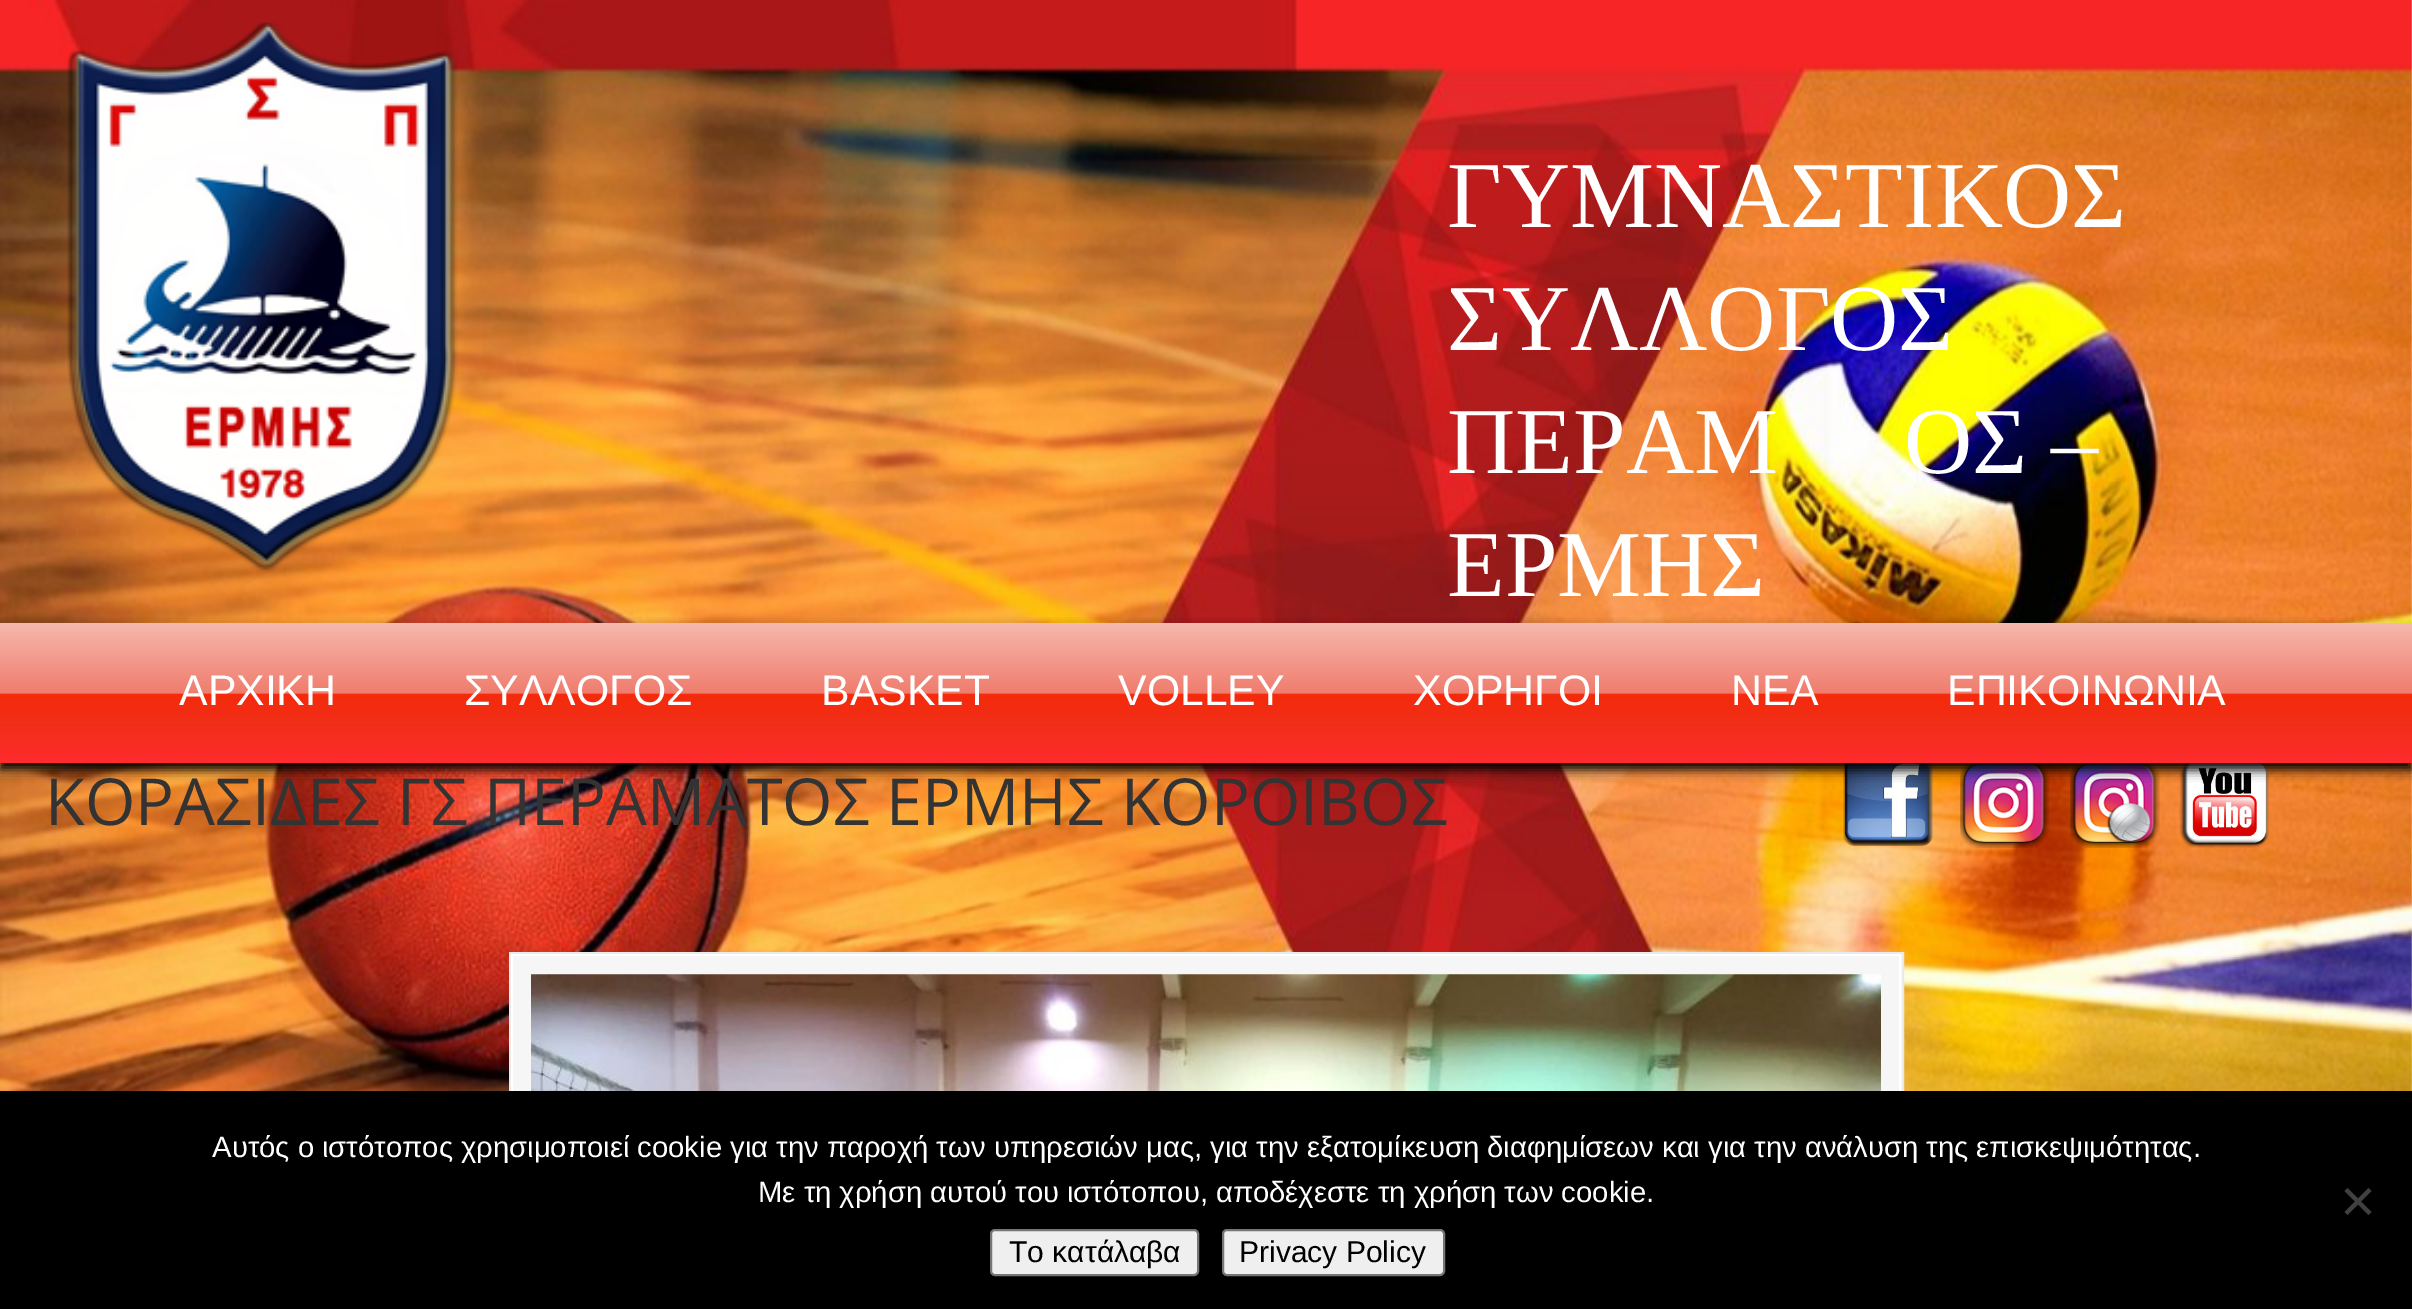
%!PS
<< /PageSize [2412 1309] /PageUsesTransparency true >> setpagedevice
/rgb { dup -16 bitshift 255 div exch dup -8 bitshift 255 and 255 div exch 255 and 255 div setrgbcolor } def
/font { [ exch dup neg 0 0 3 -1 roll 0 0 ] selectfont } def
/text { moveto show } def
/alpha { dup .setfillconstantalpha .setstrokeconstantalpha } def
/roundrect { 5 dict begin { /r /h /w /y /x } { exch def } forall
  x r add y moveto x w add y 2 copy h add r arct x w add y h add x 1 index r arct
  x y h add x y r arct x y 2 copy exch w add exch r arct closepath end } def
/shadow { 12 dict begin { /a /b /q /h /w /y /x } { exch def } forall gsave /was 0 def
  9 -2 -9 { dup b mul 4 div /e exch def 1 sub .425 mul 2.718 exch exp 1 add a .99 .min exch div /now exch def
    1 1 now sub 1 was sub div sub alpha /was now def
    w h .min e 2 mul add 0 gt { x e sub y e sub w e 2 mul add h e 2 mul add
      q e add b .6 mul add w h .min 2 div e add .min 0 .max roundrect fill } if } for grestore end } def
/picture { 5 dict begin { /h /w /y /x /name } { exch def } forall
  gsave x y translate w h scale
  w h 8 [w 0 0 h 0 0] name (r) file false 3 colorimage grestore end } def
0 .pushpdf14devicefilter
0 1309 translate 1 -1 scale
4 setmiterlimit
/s1 { /LiberationSerif-Regular 94.5 font 16#FFFFFF rgb } def
/s2 { /LiberationSans-Regular 42.75 font 16#FFFFFF rgb } def
/s3 { /OpenSans-Regular 64.8 font 16#333333 rgb } def
/s4 { /LiberationSans-Regular 29.25 font 16#FFFFFF rgb } def
/s5 { /LiberationSans-Regular 30 font 16#000000 rgb } def
16#FFFFFF rgb
0 0 2412 1309 rectfill
(pic1.raw) 0 0 2412 1091 picture
(pic2.raw) 67 22 391 551 picture
s1
(ΓΥΜΝΑΣΤΙΚΟΣ) 1447 227 text
(ΣΥΛΛΟΓΟΣ) 1447 350 text
(ΠΕΡΑΜ) 1447 473 text
(ΟΣ –) 1904 473 text
(ΕΡΜΗΣ) 1447 596 text
(pic3.raw) 1843 763 90 83 picture
(pic4.raw) 1960 763 90 85 picture
(pic5.raw) 2070 763 90 85 picture
(pic6.raw) 2179 763 90 85 picture
16#000000 rgb
0 630 2412 140 0 5.5 1 shadow
gsave 0 623 moveto 2412 623 lineto 2412 763 lineto 0 763 lineto closepath clip newpath
<< /ShadingType 2 /ColorSpace /DeviceRGB /Coords [1206 623 1206 763] /Extend [true true] /Function << /FunctionType 3 /Domain [0 1] /Functions [<< /FunctionType 2 /Domain [0 1] /C0 [0.969 0.722 0.678] /C1 [0.937 0.49 0.431] /N 1 >> << /FunctionType 2 /Domain [0 1] /C0 [0.937 0.49 0.431] /C1 [0.965 0.161 0.047] /N 1 >> << /FunctionType 2 /Domain [0 1] /C0 [0.965 0.161 0.047] /C1 [0.941 0.184 0.09] /N 1 >> << /FunctionType 2 /Domain [0 1] /C0 [0.941 0.184 0.09] /C1 [1 0.169 0.18] /N 1 >>] /Bounds [0.5 0.51 0.71] /Encode [0 1 0 1 0 1 0 1] >> >> shfill grestore
s2
(ΑΡΧΙΚΗ) 179 705 text
(ΣΥΛΛΟΓΟΣ) 464 705 text
(BASKET) 821 705 text
(VOLLEY) 1118 705 text
(ΧΟΡΗΓΟΙ) 1413 705 text
(ΝΕΑ) 1731 705 text
(ΕΠΙΚΟΙΝΩΝΙΑ) 1947 705 text
s3
(ΚΟΡΑΣΙΔΕΣ ΓΣ ΠΕΡΑΜΑΤΟΣ ΕΡΜΗΣ ΚΟΡΟΙΒΟΣ) 45 825 text
16#F6F6F6 rgb
513 954 1389 137 rectfill
16#EAEAEA rgb
2 setlinewidth
510 953 1393 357 rectstroke
16#FFFFFF rgb
512 955 1388 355 rectstroke
(pic7.raw) 531 974 1350 117 picture
16#000000 rgb
0 1091 2412 218 rectfill
s4
(Αυτός ο ιστότοπος χρησιμοποιεί cookie για την παροχή των υπηρεσιών μας, για την εξατομίκευση διαφημίσεων και για την ανάλυση της επισκεψιμότητας.) 212 1157 text
(Με τη χρήση αυτού του ιστότοπου, αποδέχεστε τη χρήση των cookie.) 758 1202 text
16#404040 rgb
2368.5 1188 moveto 2371.5 1191 lineto 2347.5 1215 lineto 2344.5 1212 lineto closepath fill
2344.5 1191 moveto 2347.5 1188 lineto 2371.5 1212 lineto 2368.5 1215 lineto closepath fill
16#EFEFEF rgb
991 1230 207 45 4 roundrect gsave fill grestore
16#767676 rgb
stroke
s5
(Το κατάλαβα) 1009 1262 text
16#EFEFEF rgb
1223 1230 221 45 4 roundrect gsave fill grestore
16#767676 rgb
stroke
s5
(Privacy Policy) 1239 1262 text
.poppdf14devicefilter showpage
